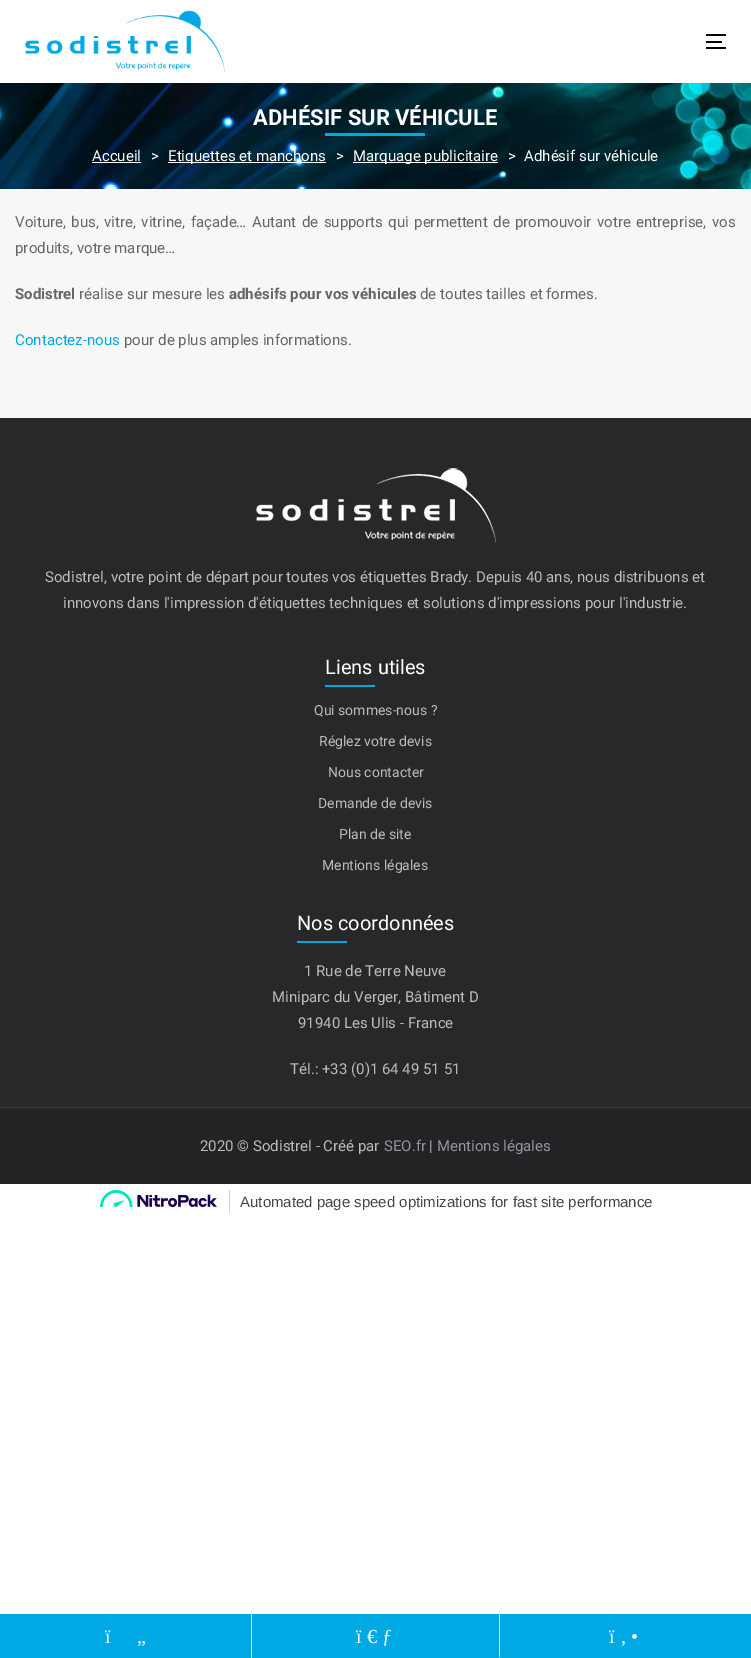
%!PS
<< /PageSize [751 1658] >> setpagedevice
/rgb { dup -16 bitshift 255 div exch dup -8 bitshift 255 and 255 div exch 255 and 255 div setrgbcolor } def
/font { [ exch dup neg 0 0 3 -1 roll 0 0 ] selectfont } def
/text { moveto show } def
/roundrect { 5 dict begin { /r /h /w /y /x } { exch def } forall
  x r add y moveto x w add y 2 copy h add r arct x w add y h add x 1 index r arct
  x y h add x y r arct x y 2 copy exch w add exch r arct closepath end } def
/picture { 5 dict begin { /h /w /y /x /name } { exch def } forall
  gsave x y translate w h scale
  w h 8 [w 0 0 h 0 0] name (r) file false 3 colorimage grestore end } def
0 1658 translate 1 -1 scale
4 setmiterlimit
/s1 { /Roboto-Bold 22 font 16#FFFFFF rgb } def
/s2 { /Roboto-Regular 15 font 16#FFFFFF rgb } def
/s3 { /Roboto-Regular 15 font 16#666666 rgb } def
/s4 { /Roboto-Bold 15 font 16#666666 rgb } def
/s5 { /Roboto-Regular 15 font 16#00A9E3 rgb } def
/s6 { /Roboto-Regular 15 font 16#BBBBBB rgb } def
/s7 { /Roboto-Regular 20 font 16#FFFFFF rgb } def
/s8 { /Roboto-Regular 14 font 16#BBBBBB rgb } def
/s9 { /Roboto-Regular 15 font 16#92959B rgb } def
/s10 { /LiberationSans-Regular 15 font 16#454545 rgb } def
16#FFFFFF rgb
0 0 751 1658 rectfill
(pic1.raw) 25 10 200 62 picture
16#000000 rgb
706 34 20 2 1 roundrect fill
706 41 16 2 1 roundrect fill
706 47 20 2 1 roundrect fill
(pic2.raw) 0 83 751 106 picture
s1
(ADHÉSIF SUR VÉHICULE) 253 125 text
16#00A9E3 rgb
325 133 100 3 rectfill
s2
(Accueil) 92 161 text
92 162 49 1 rectfill
(>) 151 161 text
168 162 158 1 rectfill
(Etiquettes et manchons) 168 161 text
(>) 336 161 text
353 162 145 1 rectfill
(Marquage publicitaire) 353 161 text
(>) 508 161 text
(Adhésif sur véhicule) 524 161 text
16#F7F7F7 rgb
0 189 751 229 rectfill
16#666666 rgb
15 227 moveto 1.75 0 32 (Voiture, bus, vitre, vitrine, façade… Autant de supports qui permettent de promouvoir votre entreprise, vos) widthshow
(produits, votre marque…) 15 253 text
s4
(Sodistrel) 15 299 text
s3
(réalise sur mesure les) 79 299 text
s4
(adhésifs pour vos véhicules) 229 299 text
s3
(de toutes tailles et formes.) 420 299 text
s5
(Contactez-nous) 15 345 text
s3
(pour de plus amples informations.) 124 345 text
16#27282A rgb
0 418 751 689 rectfill
(pic3.raw) 256 468 240 76 picture
s6
(Sodistrel, votre point de départ pour toutes vos étiquettes Brady. Depuis 40 ans, nous distribuons et) 45 582 text
(innovons dans l'impression d'étiquettes techniques et solutions d'impressions pour l'industrie.) 63 608 text
s7
(Liens utiles) 325 674 text
16#00A9E3 rgb
325 685 50 2 rectfill
s8
(Qui sommes-nous ?) 314 715 text
(Réglez votre devis) 319 746 text
(Nous contacter) 328 777 text
(Demande de devis) 318 808 text
(Plan de site) 339 839 text
(Mentions légales) 322 870 text
s7
(Nos coordonnées) 297 930 text
16#00A9E3 rgb
297 941 50 2 rectfill
s6
(1 Rue de Terre Neuve) 304 976 text
(Miniparc du Verger, Bâtiment D) 272 1002 text
(91940 Les Ulis - France) 298 1028 text
(Tél.: +33 \(0\)1 64 49 51 51) 290 1074 text
16#222324 rgb
0 1108 751 76 rectfill
16#3A3B3C rgb
0 1107 751 1 rectfill
s6
(2020 © Sodistrel - Créé par) 200 1151 text
s9
(SEO.fr) 384 1151 text
s6
(|) 429 1151 text
s9
(Mentions légales) 437 1151 text
16#D1D1D1 rgb
229 1190 1 23 rectfill
(pic4.raw) 100 1190 117 17 picture
s10
(Automated page speed optimizations for fast site performance) 240 1207 text
16#00A9E3 rgb
0 1614 251 44 rectfill
/LiberationSerif-Regular 20 font
16#FFFFFF rgb
105 1643 moveto 5 0 (ï) ashow
137 1643 moveto 5 0 („) ashow
16#00A9E3 rgb
252 1616 247 40 rectfill
251 1614 moveto 500 1614 lineto 499 1616 lineto 252 1616 lineto closepath fill
16#FFFFFF rgb
500 1614 moveto 500 1658 lineto 499 1656 lineto 499 1616 lineto closepath fill
16#00A9E3 rgb
500 1658 moveto 251 1658 lineto 252 1656 lineto 499 1656 lineto closepath fill
16#FFFFFF rgb
251 1658 moveto 251 1614 lineto 252 1616 lineto 252 1656 lineto closepath fill
356 1643 moveto 5 0 (ï€ƒ) ashow
16#00A9E3 rgb
500 1614 251 44 rectfill
16#FFFFFF rgb
609 1643 moveto 5 0 (ï‚•) ashow
showpage
